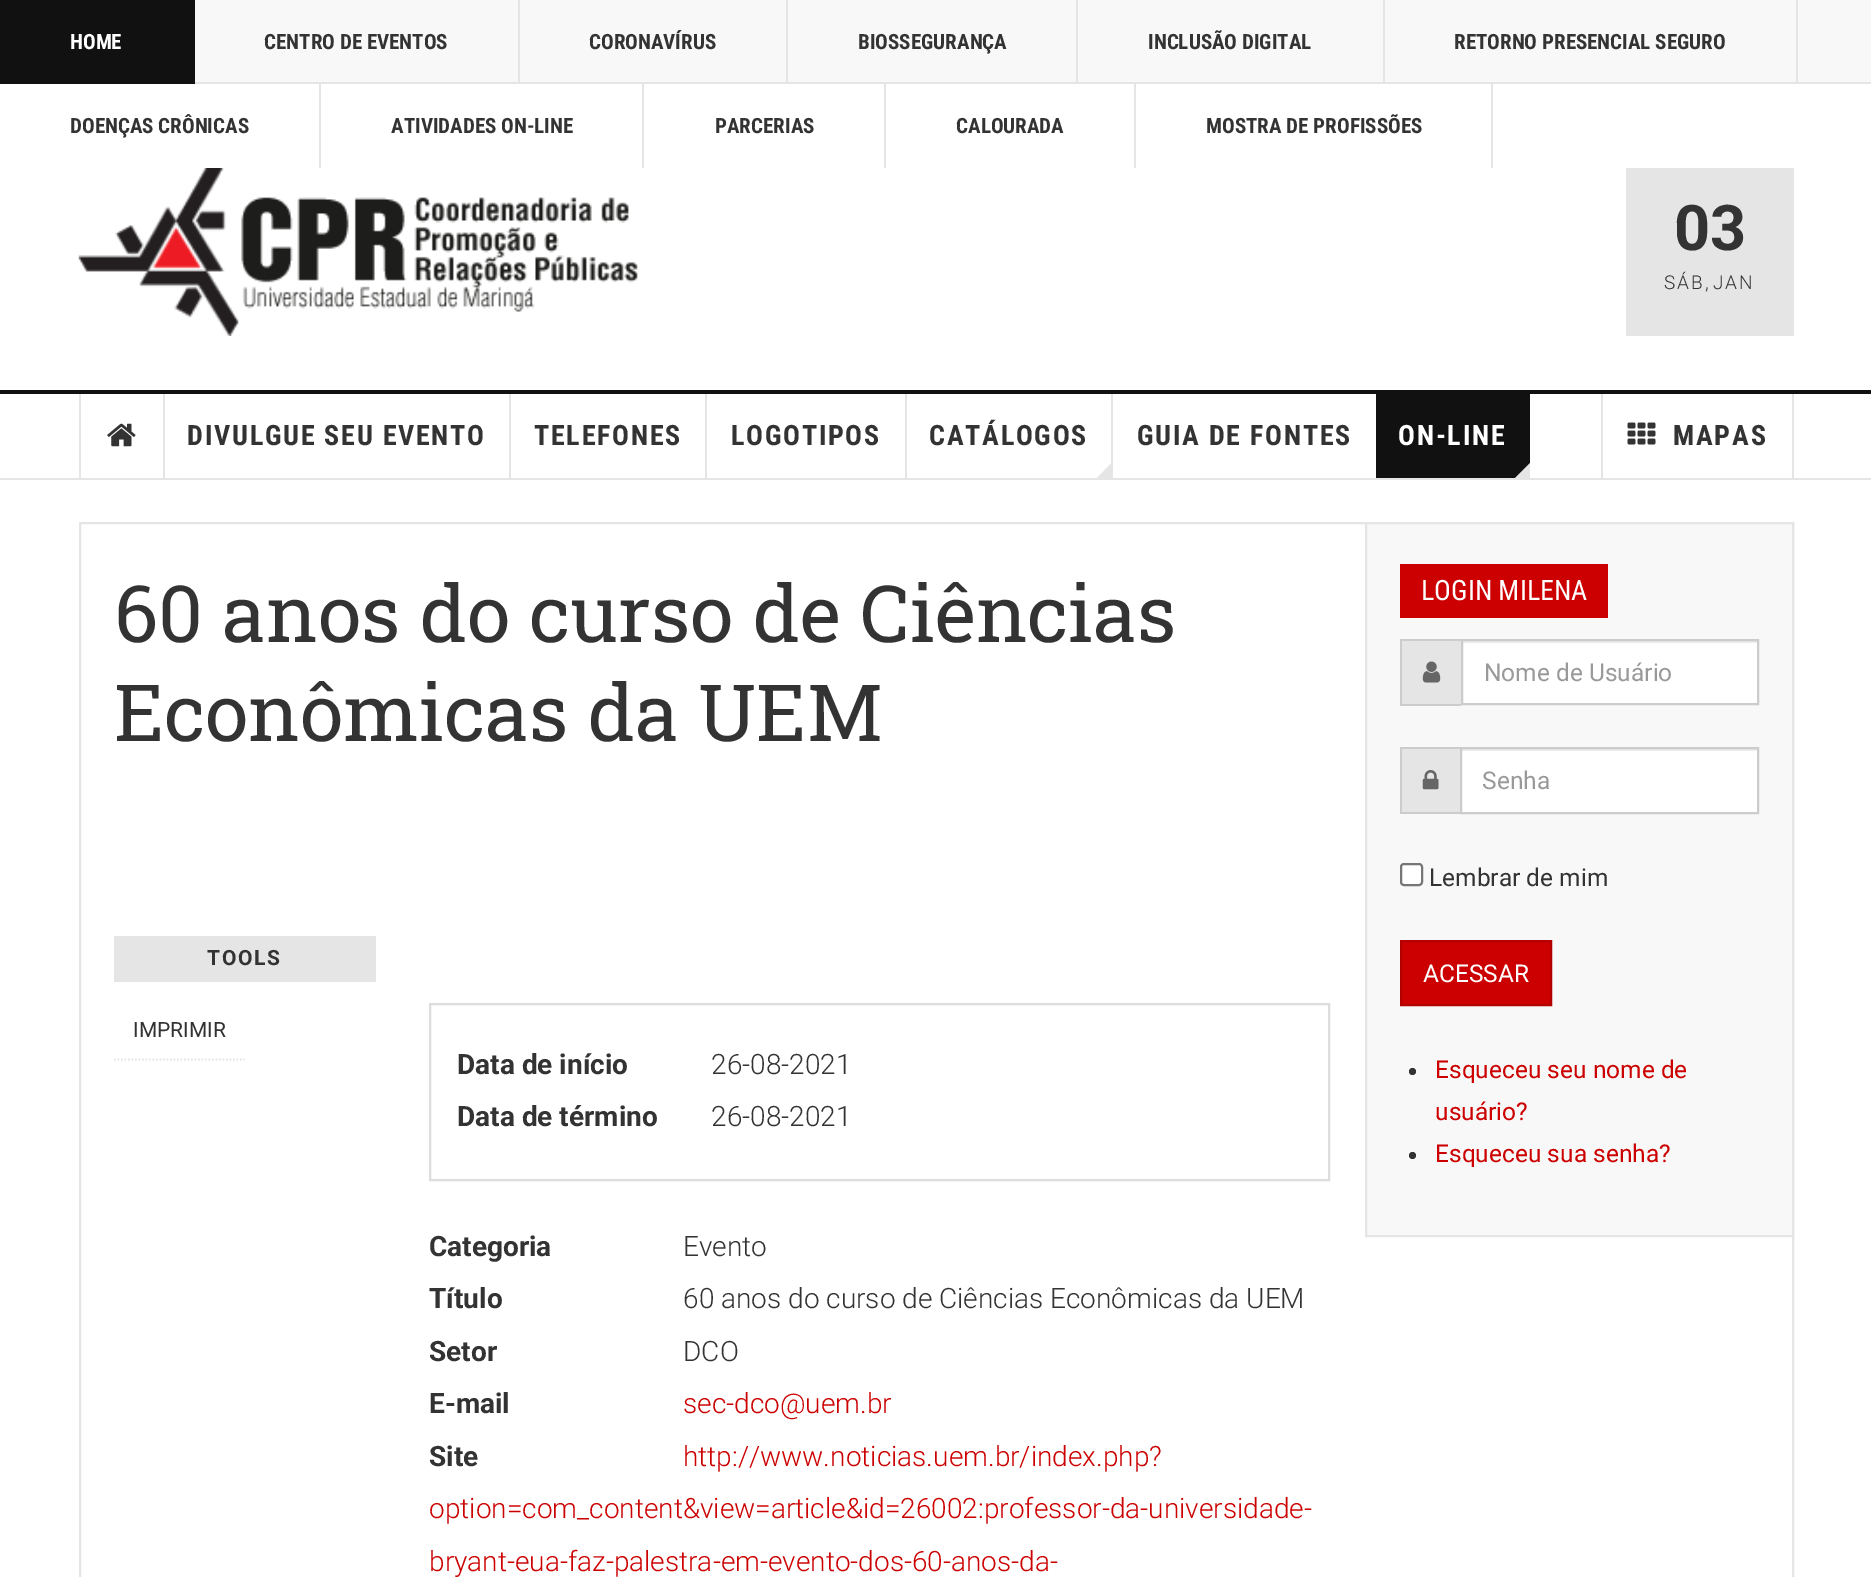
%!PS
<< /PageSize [1871 1577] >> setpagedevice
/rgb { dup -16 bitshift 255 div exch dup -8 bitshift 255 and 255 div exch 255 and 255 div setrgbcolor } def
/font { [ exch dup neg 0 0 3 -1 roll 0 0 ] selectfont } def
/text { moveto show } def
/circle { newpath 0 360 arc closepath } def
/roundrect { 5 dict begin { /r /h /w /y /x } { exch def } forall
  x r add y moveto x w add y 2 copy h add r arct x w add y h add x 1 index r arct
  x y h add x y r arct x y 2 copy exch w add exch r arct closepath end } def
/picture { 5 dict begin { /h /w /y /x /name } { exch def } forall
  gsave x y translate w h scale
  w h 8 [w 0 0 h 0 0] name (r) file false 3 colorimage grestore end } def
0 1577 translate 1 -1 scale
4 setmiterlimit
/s1 { /RobotoCondensed-Bold 21 font 16#FFFFFF rgb } def
/s2 { /RobotoCondensed-Bold 21 font 16#333333 rgb } def
/s3 { /Roboto-Bold 63 font 16#333333 rgb } def
/s4 { /Roboto-Light 19 font 16#333333 rgb } def
/s5 { /RobotoSlab-Regular 78.75 font 16#333333 rgb } def
/s6 { /Roboto-Regular 21 font 16#333333 rgb } def
/s7 { /Roboto-Bold 28 font 16#333333 rgb } def
/s8 { /Roboto-Light 28 font 16#333333 rgb } def
/s9 { /Roboto-Light 28 font 16#CC0000 rgb } def
/s10 { /RobotoCondensed-Regular 28 font 16#FFFFFF rgb } def
/s11 { /Roboto-Regular 24.5 font 16#999999 rgb } def
/s12 { /Roboto-Regular 24.5 font 16#333333 rgb } def
/s13 { /Roboto-Regular 24.5 font 16#FFFFFF rgb } def
/s14 { /Roboto-Regular 24.5 font 16#CC0000 rgb } def
16#FFFFFF rgb
0 0 1871 1577 rectfill
16#F8F8F8 rgb
195 0 1676 82 rectfill
16#E5E5E5 rgb
195 82 1676 2 rectfill
16#111111 rgb
0 0 195 84 rectfill
s1
(HOME) 70 49 text
16#E5E5E5 rgb
518 0 2 84 rectfill
s2
(CENTRO DE EVENTOS) 264 49 text
16#E5E5E5 rgb
786 0 2 84 rectfill
s2
(CORONAVÍRUS) 589 49 text
16#E5E5E5 rgb
1076 0 2 84 rectfill
s2
(BIOSSEGURANÇA) 858 49 text
16#E5E5E5 rgb
1383 0 2 84 rectfill
s2
(INCLUSÃO DIGITAL) 1148 49 text
16#E5E5E5 rgb
1796 0 2 84 rectfill
s2
(RETORNO PRESENCIAL SEGURO) 1454 49 text
16#E5E5E5 rgb
319 84 2 84 rectfill
s2
(DOENÇAS CRÔNICAS) 70 133 text
16#E5E5E5 rgb
642 84 2 84 rectfill
s2
(ATIVIDADES ON-LINE) 391 133 text
16#E5E5E5 rgb
884 84 2 84 rectfill
s2
(PARCERIAS) 715 133 text
16#E5E5E5 rgb
1134 84 2 84 rectfill
s2
(CALOURADA) 956 133 text
16#E5E5E5 rgb
1491 84 2 84 rectfill
s2
(MOSTRA DE PROFISSÕES) 1206 133 text
(pic1.raw) 78 168 560 168 picture
16#E5E5E5 rgb
1626 168 168 168 rectfill
s3
(03) 1674 250 text
/Roboto-Light 19 font
1664 289 moveto 1.75 0 (SÁB) ashow
(,) 1705 289 text
1713 289 moveto 1.75 0 (JAN) ashow
16#111111 rgb
0 390 moveto 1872 390 lineto 1871 394 lineto 0 394 lineto closepath fill
16#E5E5E5 rgb
0 478 1871 2 rectfill
79 394 2 84 rectfill
163 394 2 84 rectfill
(pic2.raw) 107 423 29 24 picture
509 394 2 84 rectfill
/RobotoCondensed-Bold 28 font
16#333333 rgb
187 445 moveto 1.75 0 (DIVULGUE SEU EVENTO) ashow
16#E5E5E5 rgb
705 394 2 84 rectfill
16#333333 rgb
534 445 moveto 1.75 0 (TELEFONES) ashow
16#E5E5E5 rgb
905 394 2 84 rectfill
16#333333 rgb
731 445 moveto 1.75 0 (LOGOTIPOS) ashow
16#E5E5E5 rgb
1111 394 2 84 rectfill
16#333333 rgb
929 445 moveto 1.75 0 (CATÁLOGOS) ashow
16#E5E5E5 rgb
1097 478 moveto 1111.5 463 lineto 1111.5 478 lineto closepath fill
16#333333 rgb
1137 445 moveto 1.75 0 (GUIA DE FONTES) ashow
16#111111 rgb
1376 394 154 84 rectfill
16#FFFFFF rgb
1398 445 moveto 1.75 0 (ON-LINE) ashow
16#E5E5E5 rgb
1515 478 moveto 1530 463 lineto 1530 478 lineto closepath fill
1601 394 2 84 rectfill
1792 394 2 84 rectfill
(pic3.raw) 1627 422 29 23 picture
16#333333 rgb
1673 445 moveto 1.75 0 (MAPAS) ashow
16#E5E5E5 rgb
2 setlinewidth
80 523 1713 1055 rectstroke
s5
(60 anos do curso de Ciências) 114 642 text
(Econômicas da UEM) 114 741 text
16#E5E5E5 rgb
114 936 262 46 rectfill
/Roboto-Bold 21 font
16#333333 rgb
207 965 moveto 1.75 0 (TOOLS) ashow
16#E5E5E5 rgb
1.8 setlinewidth
[1.75 1.75] 0 setdash
114 1059.5 moveto 245 1059.5 lineto stroke
s6
(IMPRIMIR) 133 1037 text
16#DDDDDD rgb
2 setlinewidth
[] 0 setdash
430 1004 899 176 rectstroke
s7
(Data de início) 457 1074 text
s8
(26-08-2021) 711 1074 text
s7
(Data de término) 457 1126 text
s8
(26-08-2021) 711 1126 text
s7
(Categoria) 429 1256 text
s8
(Evento) 683 1256 text
s7
(Título) 429 1308 text
s8
(60 anos do curso de Ciências Econômicas da UEM) 683 1308 text
s7
(Setor) 429 1361 text
s8
(DCO) 683 1361 text
s7
(E-mail) 429 1413 text
s9
(sec-dco@uem.br) 683 1413 text
s7
(Site) 429 1466 text
s9
(http://www.noticias.uem.br/index.php?) 683 1466 text
(option=com_content&view=article&id=26002:professor-da-universidade-) 429 1518 text
(bryant-eua-faz-palestra-em-evento-dos-60-anos-da-) 429 1571 text
16#F8F8F8 rgb
1366 523 moveto 1793 523 lineto 1793 1236 lineto 1366 1236 lineto closepath gsave fill grestore
16#E5E5E5 rgb
stroke
16#CC0000 rgb
1400 564 208 54 rectfill
s10
(LOGIN MILENA) 1421 600 text
16#E5E5E5 rgb
1402 641 59 63 rectfill
16#CCCCCC rgb
1400 639 61 2 rectfill
1400 704 61 2 rectfill
1400 639 2 66 rectfill
(pic4.raw) 1422 661 19 22 picture
16#FFFFFF rgb
1463 643 294 60 rectfill
16#ECECEC rgb
1463 641 294 2 rectfill
16#CCCCCC rgb
1462 640 296 64 rectstroke
s11
(Nome de Usuário) 1484 681 text
16#E5E5E5 rgb
1402 749 58 63 rectfill
16#CCCCCC rgb
1400 747 60 2 rectfill
1400 812 60 2 rectfill
1400 747 2 67 rectfill
(pic5.raw) 1422 770 17 20 picture
16#FFFFFF rgb
1462 751 295 61 rectfill
16#ECECEC rgb
1461 749 296 2 rectfill
16#CCCCCC rgb
1461 748 297 65 rectstroke
s11
(Senha) 1482 789 text
16#FFFFFF rgb
1401 864 21 21 3 roundrect gsave fill grestore
16#767676 rgb
stroke
s12
(Lembrar de mim) 1429 886 text
16#CC0000 rgb
1401 941 moveto 1551 941 lineto 1551 1005 lineto 1401 1005 lineto closepath gsave fill grestore
16#B30000 rgb
stroke
s13
(ACESSAR) 1423 982 text
16#333333 rgb
1412.5 1071.5 3.5 circle fill
s14
(Esqueceu seu nome de) 1435 1078 text
(usuário?) 1435 1120 text
16#333333 rgb
1412.5 1155.5 3.5 circle fill
s14
(Esqueceu sua senha?) 1435 1162 text
showpage
